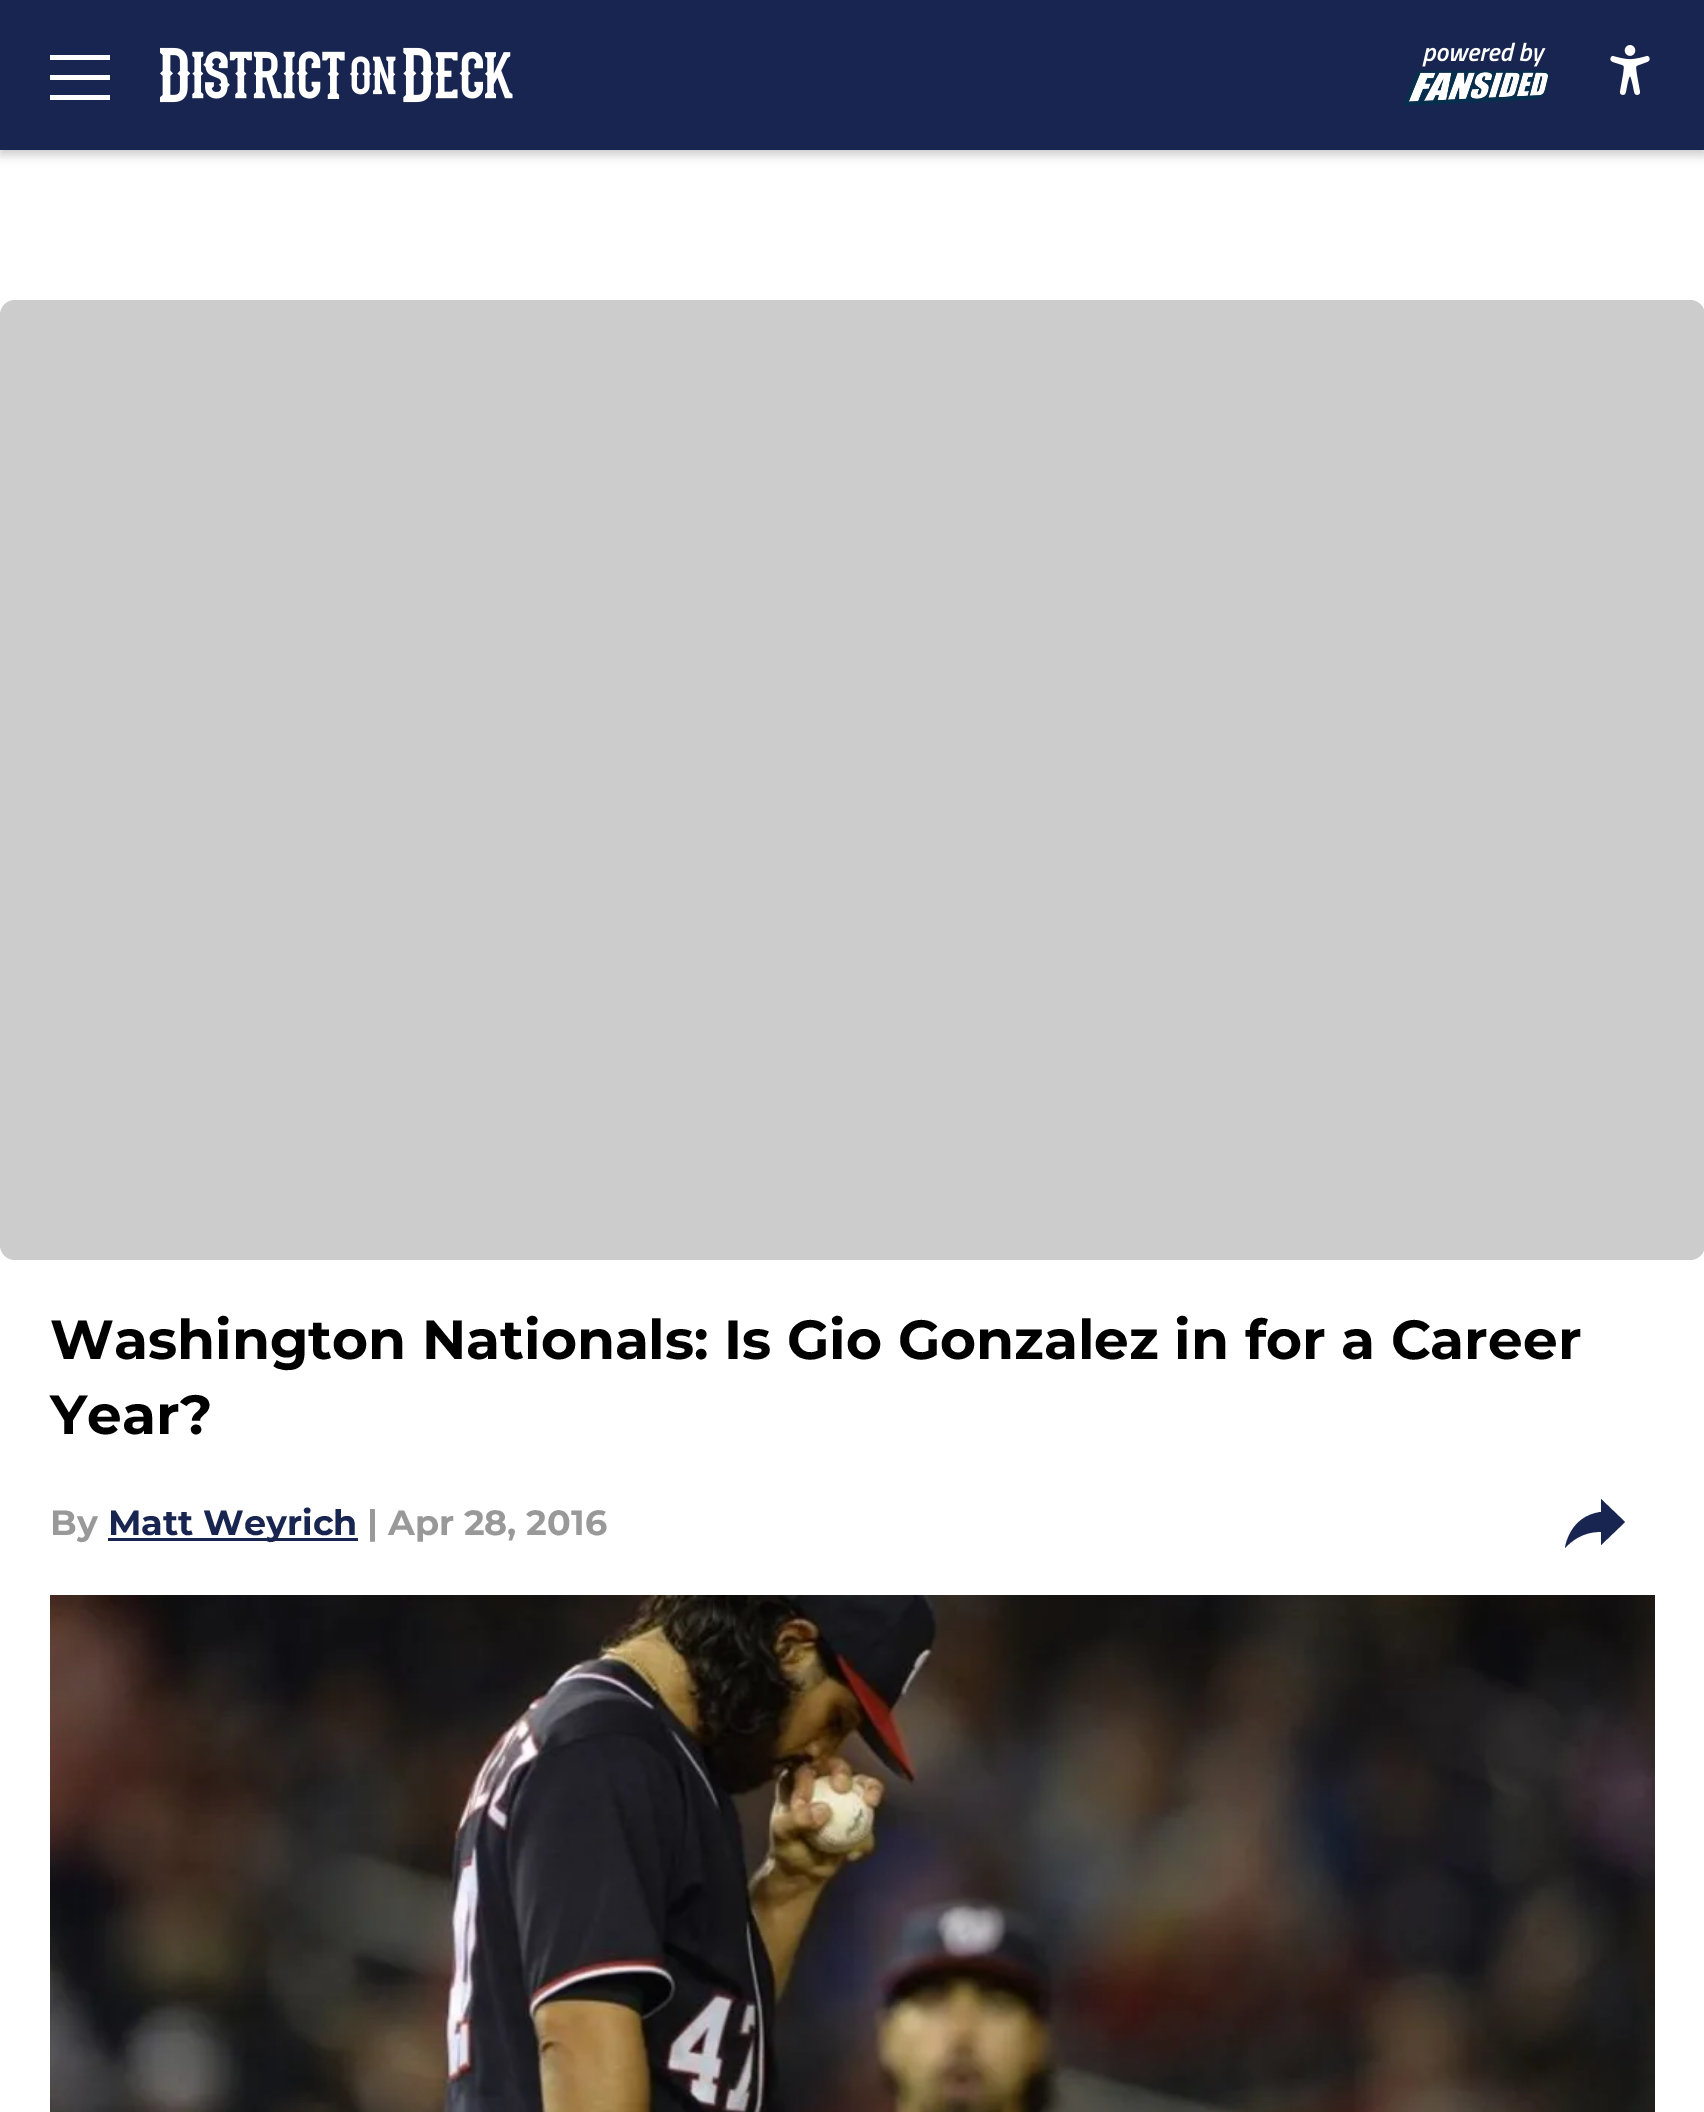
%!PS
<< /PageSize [1704 2112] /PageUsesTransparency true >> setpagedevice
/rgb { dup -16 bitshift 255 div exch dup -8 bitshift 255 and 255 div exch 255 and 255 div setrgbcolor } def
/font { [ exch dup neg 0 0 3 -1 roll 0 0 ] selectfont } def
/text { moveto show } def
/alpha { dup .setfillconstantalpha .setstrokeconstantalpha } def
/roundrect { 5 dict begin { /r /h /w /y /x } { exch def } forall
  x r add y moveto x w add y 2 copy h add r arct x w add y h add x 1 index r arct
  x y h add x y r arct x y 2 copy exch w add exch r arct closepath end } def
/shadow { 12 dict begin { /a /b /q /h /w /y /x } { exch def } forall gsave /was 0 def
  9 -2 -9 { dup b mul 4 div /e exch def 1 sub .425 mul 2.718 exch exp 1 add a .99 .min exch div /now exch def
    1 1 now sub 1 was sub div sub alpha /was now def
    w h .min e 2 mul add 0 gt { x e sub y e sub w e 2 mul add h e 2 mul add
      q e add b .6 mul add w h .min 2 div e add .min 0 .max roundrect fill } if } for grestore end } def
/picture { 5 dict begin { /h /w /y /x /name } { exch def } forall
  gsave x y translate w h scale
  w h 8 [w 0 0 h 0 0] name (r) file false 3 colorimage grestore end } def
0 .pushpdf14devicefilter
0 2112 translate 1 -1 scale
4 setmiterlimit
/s1 { /Montserrat-Thin 55 font 16#000000 rgb } def
/s2 { /Montserrat-Thin 35 font 16#999999 rgb } def
/s3 { /Montserrat-Thin 35 font 16#182550 rgb } def
16#FFFFFF rgb
0 0 1704 2112 rectfill
16#000000 rgb
0 5 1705 150 0 5 0.2 shadow
16#182550 rgb
0 0 1704 150 rectfill
16#FFFFFF rgb
50 55 60 5 rectfill
50 75 60 5 rectfill
50 95 60 5 rectfill
(pic1.raw) 160 47 353 56 picture
(pic2.raw) 1403 42 147 64 picture
(pic3.raw) 1610 45 40 50 picture
16#CCCCCC rgb
0 300 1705 960 15 roundrect fill
s1
(Washington Nationals: Is Gio Gonzalez in for a Career) 50 1359 text
(Year?) 50 1434 text
s2
(By) 50 1535 text
16#182550 rgb
108 1538 250 3 rectfill
(Matt Weyrich) 108 1535 text
s2
(| Apr 28, 2016) 367 1535 text
16#182550 rgb
1601 1545 moveto 1601 1532 lineto 1601 1532 1581 1530 1565 1548 curveto 1565 1548 1569 1516 1601 1512 curveto 1601 1499 lineto 1625 1522 lineto closepath fill
(pic4.raw) 50 1595 1605 517 picture
.poppdf14devicefilter showpage
